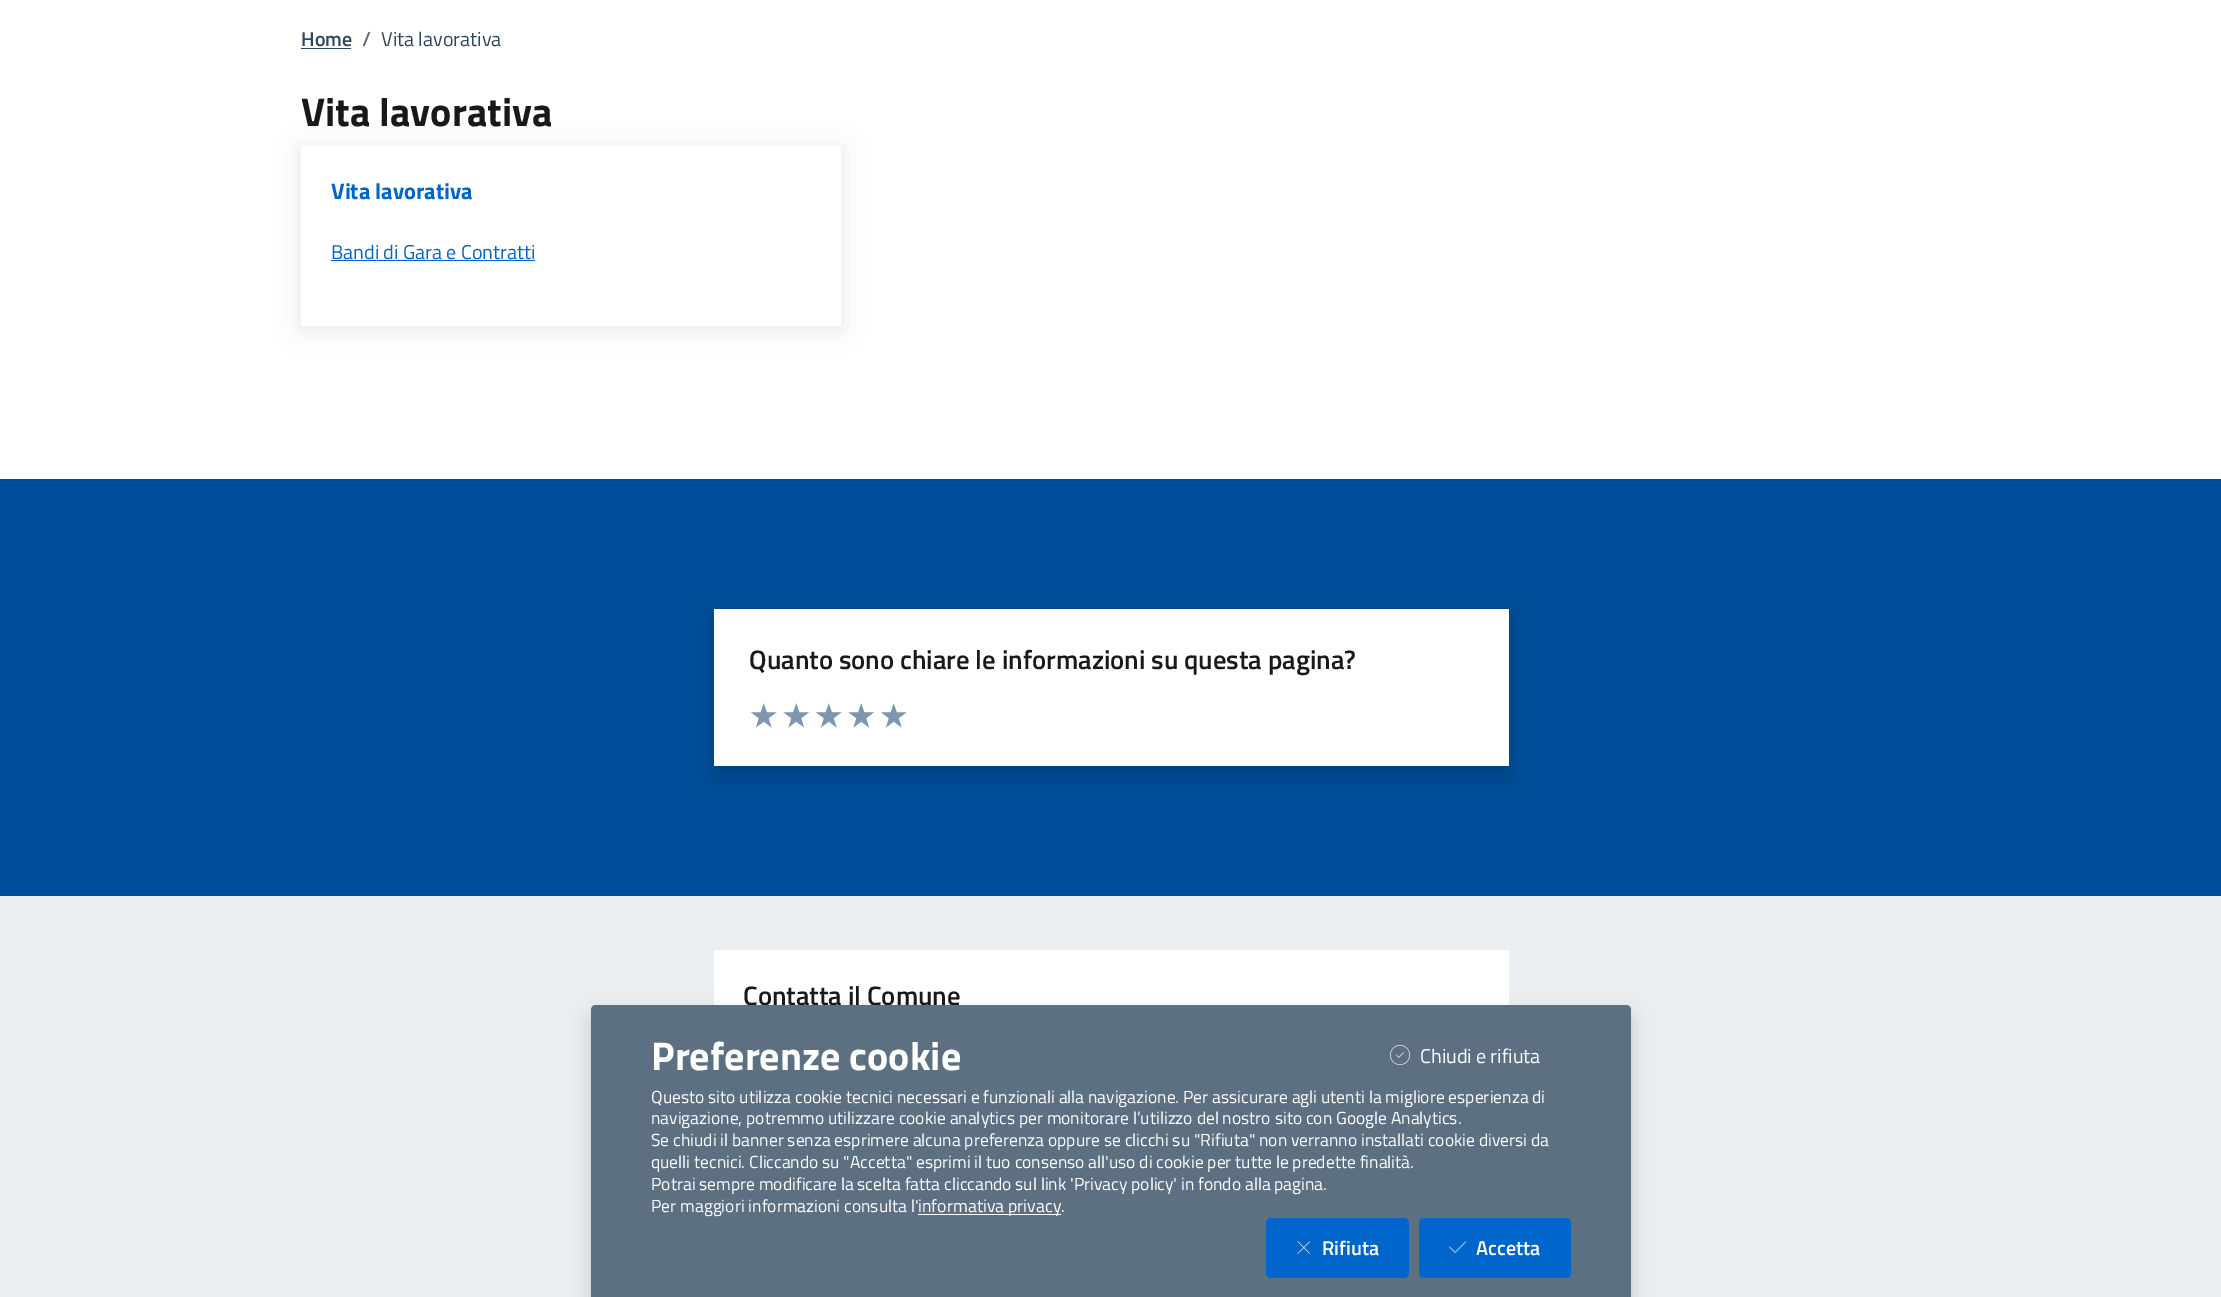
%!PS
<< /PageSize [2221 1297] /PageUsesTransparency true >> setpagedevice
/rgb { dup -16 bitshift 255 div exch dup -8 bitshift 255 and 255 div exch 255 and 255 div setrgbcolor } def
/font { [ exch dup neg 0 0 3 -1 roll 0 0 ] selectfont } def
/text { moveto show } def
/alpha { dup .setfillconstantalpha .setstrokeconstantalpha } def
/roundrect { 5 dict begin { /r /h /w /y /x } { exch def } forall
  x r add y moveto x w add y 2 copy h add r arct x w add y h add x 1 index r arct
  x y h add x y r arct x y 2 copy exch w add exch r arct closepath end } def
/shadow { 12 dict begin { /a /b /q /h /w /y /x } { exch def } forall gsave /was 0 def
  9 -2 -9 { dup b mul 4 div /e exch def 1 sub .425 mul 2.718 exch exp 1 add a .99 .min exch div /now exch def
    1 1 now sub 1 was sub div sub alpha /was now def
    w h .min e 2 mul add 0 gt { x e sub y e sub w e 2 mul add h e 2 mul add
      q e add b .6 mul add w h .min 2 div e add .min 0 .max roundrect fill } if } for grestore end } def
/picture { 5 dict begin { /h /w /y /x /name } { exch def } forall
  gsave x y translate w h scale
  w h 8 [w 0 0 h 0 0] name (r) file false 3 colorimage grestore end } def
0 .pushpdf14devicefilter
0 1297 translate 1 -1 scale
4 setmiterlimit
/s1 { /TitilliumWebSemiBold-SemiBold 20 font 16#30475F rgb } def
/s2 { /TitilliumWebSemiBold-SemiBold 20 font 16#5D7083 rgb } def
/s3 { /TitilliumWeb-Regular 20 font 16#30475F rgb } def
/s4 { /TitilliumWeb-Bold 40 font 16#191919 rgb } def
/s5 { /TitilliumWeb-Bold 22.5 font 16#0066CC rgb } def
/s6 { /TitilliumWeb-Regular 20 font 16#0066CC rgb } def
/s7 { /TitilliumWebSemiBold-SemiBold 26.7 font 16#191919 rgb } def
/s8 { /TitilliumWeb-Bold 40 font 16#FFFFFF rgb } def
/s9 { /TitilliumWeb-Regular 20 font 16#FFFFFF rgb } def
/s10 { /TitilliumWeb-Regular 17.5 font 16#FFFFFF rgb } def
/s11 { /TitilliumWeb-Regular 17.75 font 16#FFFFFF rgb } def
/s12 { /TitilliumWebSemiBold-SemiBold 20 font 16#FFFFFF rgb } def
16#FFFFFF rgb
0 0 2221 1297 rectfill
s1
(Home) 301 46 text
301 48 50 1 rectfill
s2
(/) 362 46 text
s3
(Vita lavorativa) 381 46 text
s4
(Vita lavorativa) 301 126 text
16#000000 rgb
301 149 540 180 0 12.5 0.1 shadow
16#FFFFFF rgb
301 146 540 180 rectfill
s5
(Vita lavorativa) 331 199 text
s6
(Bandi di Gara e Contratti) 331 259 text
331 260 204 1 rectfill
16#004D99 rgb
0 479 2221 417 rectfill
16#000000 rgb
714 619 795 157 0 10 0.15 shadow
16#FFFFFF rgb
714 609 795 157 rectfill
s7
(Quanto sono chiare le informazioni su questa pagina?) 749 669 text
(pic1.raw) 751 703 26 25 picture
(pic2.raw) 783 703 26 25 picture
(pic3.raw) 816 703 26 25 picture
(pic2.raw) 848 703 26 25 picture
(pic3.raw) 881 703 26 25 picture
16#EBEEF0 rgb
0 896 2221 401 rectfill
16#FFFFFF rgb
714 950 795 55 rectfill
s7
(Contatta il Comune) 743 1005 text
16#000000 rgb
591 1015 1040 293 5 10 0.15 shadow
16#5C7082 rgb
596 1005 moveto 1626 1005 lineto 1629 1005 1631 1007 1631 1010 curveto 1631 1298 lineto 591 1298 lineto 591 1010 lineto 591 1007 593 1005 596 1005 curveto closepath fill
s8
(Preferenze cookie) 651 1070 text
(pic4.raw) 1390 1045 20 20 picture
s9
(Chiudi e rifiuta) 1420 1063 text
s10
(Questo sito utilizza cookie tecnici necessari e funzionali alla navigazione. Per assicurare agli utenti la migliore esperienza di) 651 1103 text
(navigazione, potremmo utilizzare cookie analytics per monitorare l’utilizzo del nostro sito con Google Analytics.) 651 1124 text
(Se chiudi il banner senza esprimere alcuna preferenza oppure se clicchi su "Rifiuta" non verranno installati cookie diversi da) 651 1146 text
(quelli tecnici. Cliccando su "Accetta" esprimi il tuo consenso all'uso di cookie per tutte le predette finalità.) 651 1168 text
(Potrai sempre modificare la scelta fatta cliccando sul link 'Privacy policy' in fondo alla pagina.) 651 1190 text
(Per maggiori informazioni consulta l') 651 1212 text
918 1214 143 1 rectfill
s11
(informativa privacy) 918 1212 text
s10
(.) 1061 1212 text
16#0066CC rgb
1266 1218 143 60 5 roundrect fill
(pic5.raw) 1297 1241 13 13 picture
s12
(Rifiuta) 1322 1255 text
16#0066CC rgb
1419 1218 152 60 5 roundrect fill
(pic6.raw) 1449 1241 17 12 picture
s12
(Accetta) 1476 1255 text
.poppdf14devicefilter showpage
